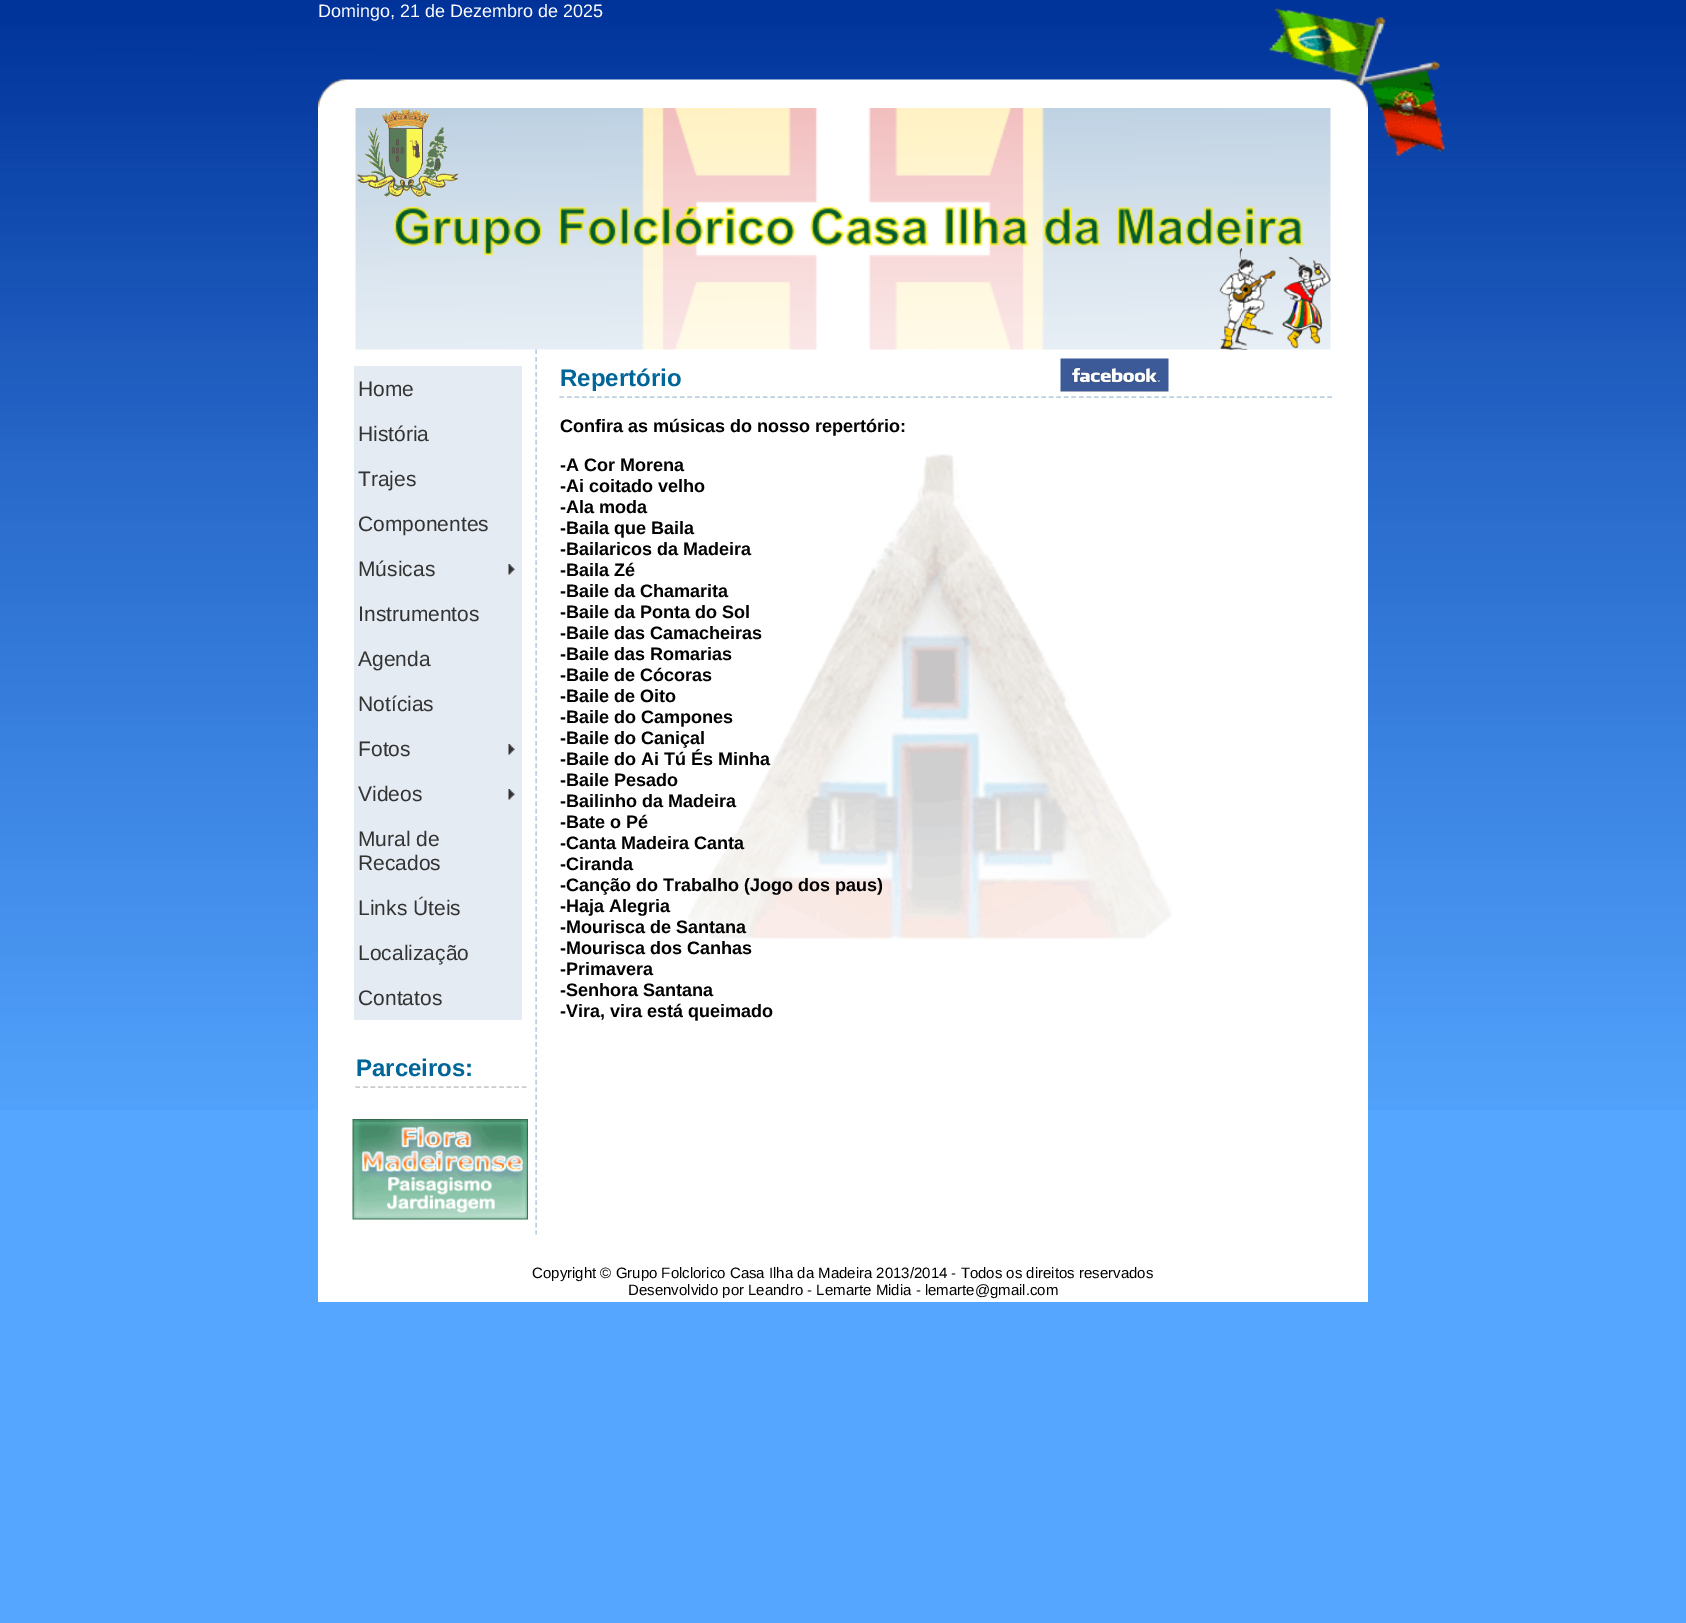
%!PS
<< /PageSize [1686 1623] >> setpagedevice
/rgb { dup -16 bitshift 255 div exch dup -8 bitshift 255 and 255 div exch 255 and 255 div setrgbcolor } def
/font { [ exch dup neg 0 0 3 -1 roll 0 0 ] selectfont } def
/text { moveto show } def
/picture { 5 dict begin { /h /w /y /x /name } { exch def } forall
  gsave x y translate w h scale
  w h 8 [w 0 0 h 0 0] name (r) file false 3 colorimage grestore end } def
0 1623 translate 1 -1 scale
4 setmiterlimit
/s1 { /LiberationSans-Regular 18 font 16#FFFFFF rgb } def
/s2 { /LiberationSans-Regular 21 font 16#333333 rgb } def
/s3 { /LiberationSans-Bold 24 font 16#006699 rgb } def
/s4 { /LiberationSans-Bold 18 font 16#000000 rgb } def
/s5 { /LiberationSans-Regular 15 font 16#000000 rgb } def
16#55A6FF rgb
0 0 1686 1623 rectfill
(pic1.raw) 0 0 1686 1110 picture
s1
(Domingo, 21 de Dezembro de 2025) 318 17 text
(pic2.raw) 318 79 1050 29 picture
318 108 1050 1194 rectfill
(pic3.raw) 355 108 976 242 picture
(pic4.raw) 1269 8 176 148 picture
(pic5.raw) 392 206 912 50 picture
16#BDD0E1 rgb
1.5 setlinewidth
[4.5 3.03] 0 setdash
536 349.5 moveto 536 1234.5 lineto stroke
16#E4EBF3 rgb
354 366 168 654 rectfill
s2
(Home) 358 396 text
(História) 358 441 text
(Trajes) 358 486 text
(Componentes) 358 531 text
(pic6.raw) 508 564 7 11 picture
(Músicas) 358 576 text
(Instrumentos) 358 621 text
(Agenda) 358 666 text
(Notícias) 358 711 text
(pic6.raw) 508 744 7 11 picture
(Fotos) 358 756 text
(pic6.raw) 508 789 7 11 picture
(Videos) 358 801 text
(Mural de) 358 846 text
(Recados) 358 870 text
(Links Úteis) 358 915 text
(Localização) 358 960 text
(Contatos) 358 1005 text
16#CCCCCC rgb
[4.5 3.07] 0 setdash
355.5 1087 moveto 526.5 1087 lineto stroke
s3
(Parceiros:) 356 1076 text
(pic7.raw) 352 1119 176 101 picture
(pic8.raw) 688 454 484 485 picture
16#BDD0E1 rgb
[4.5 3.03] 0 setdash
559.5 397 moveto 1332 397 lineto stroke
s3
(Repertório) 560 386 text
s4
(Confira as músicas do nosso repertório:) 560 432 text
(-A Cor Morena) 560 471 text
(-Ai coitado velho) 560 492 text
(-Ala moda) 560 513 text
(-Baila que Baila) 560 534 text
(-Bailaricos da Madeira) 560 555 text
(-Baila Zé) 560 576 text
(-Baile da Chamarita) 560 597 text
(-Baile da Ponta do Sol) 560 618 text
(-Baile das Camacheiras) 560 639 text
(-Baile das Romarias) 560 660 text
(-Baile de Cócoras) 560 681 text
(-Baile de Oito) 560 702 text
(-Baile do Campones) 560 723 text
(-Baile do Caniçal) 560 744 text
(-Baile do Ai Tú És Minha) 560 765 text
(-Baile Pesado) 560 786 text
(-Bailinho da Madeira) 560 807 text
(-Bate o Pé) 560 828 text
(-Canta Madeira Canta) 560 849 text
(-Ciranda) 560 870 text
(-Canção do Trabalho \(Jogo dos paus\)) 560 891 text
(-Haja Alegria) 560 912 text
(-Mourisca de Santana) 560 933 text
(-Mourisca dos Canhas) 560 954 text
(-Primavera) 560 975 text
(-Senhora Santana) 560 996 text
(-Vira, vira está queimado) 560 1017 text
s5
(Copyright © Grupo Folclorico Casa Ilha da Madeira 2013/2014 - Todos os direitos reservados) 532 1278 text
(Desenvolvido por Leandro - Lemarte Midia - lemarte@gmail.com) 628 1295 text
(pic9.raw) 357 109 102 88 picture
(pic10.raw) 1219 247 112 103 picture
(pic11.raw) 1060 358 109 34 picture
showpage
